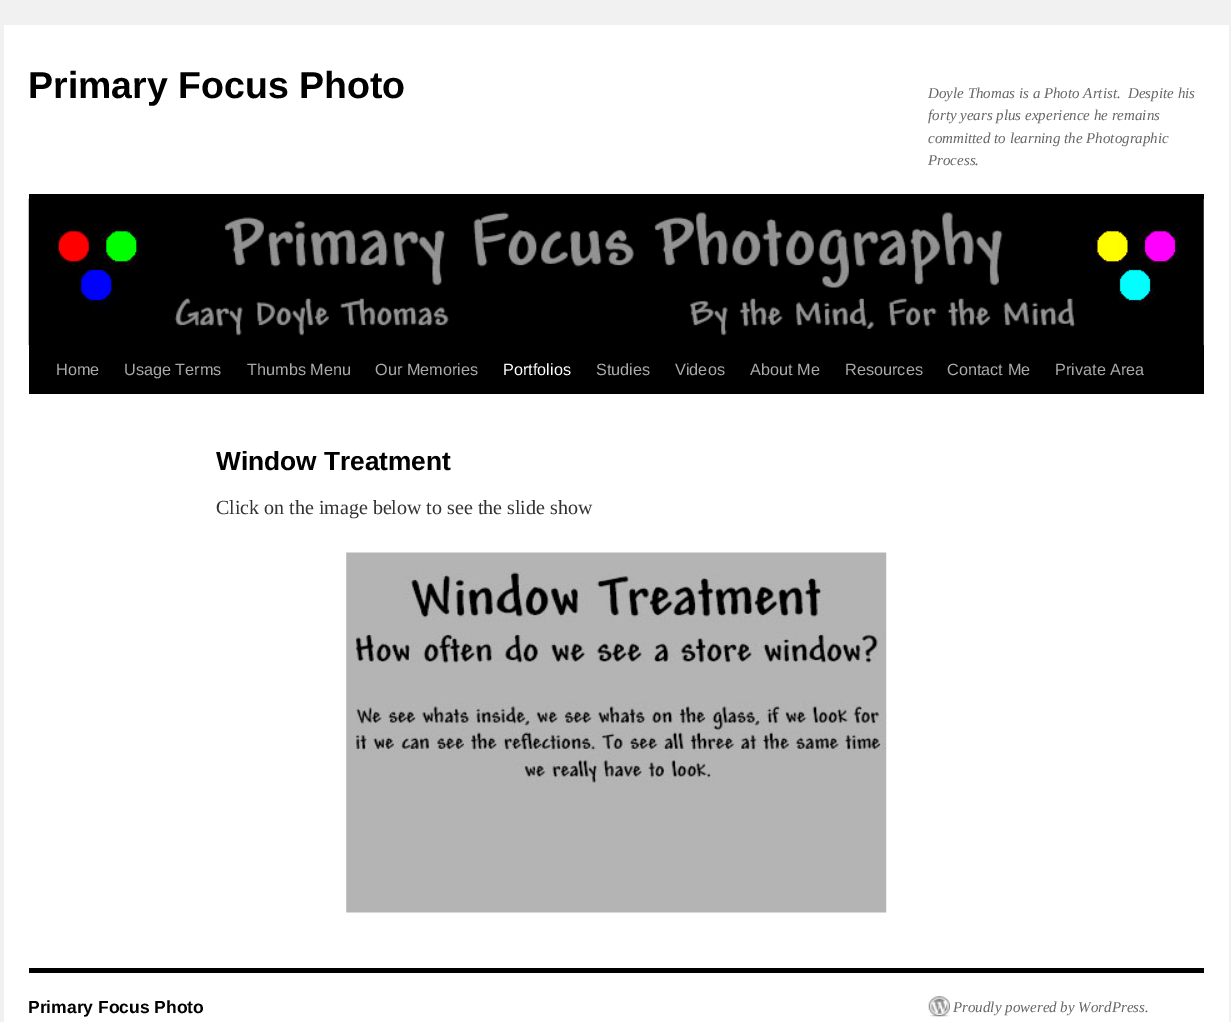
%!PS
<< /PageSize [1231 1022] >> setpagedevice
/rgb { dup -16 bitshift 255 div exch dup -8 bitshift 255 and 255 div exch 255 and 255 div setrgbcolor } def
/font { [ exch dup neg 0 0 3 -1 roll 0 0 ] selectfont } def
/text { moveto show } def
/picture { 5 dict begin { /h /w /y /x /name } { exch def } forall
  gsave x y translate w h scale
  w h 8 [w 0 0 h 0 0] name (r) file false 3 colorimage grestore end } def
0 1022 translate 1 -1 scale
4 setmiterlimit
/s1 { /LiberationSans-Bold 37.5 font 16#000000 rgb } def
/s2 { /LiberationSerif-Italic 15 font 16#666666 rgb } def
/s3 { /LiberationSans-Regular 16.25 font 16#AAAAAA rgb } def
/s4 { /LiberationSans-Regular 16.25 font 16#FFFFFF rgb } def
/s5 { /LiberationSans-Bold 26.25 font 16#000000 rgb } def
/s6 { /LiberationSerif-Regular 20 font 16#333333 rgb } def
/s7 { /LiberationSans-Bold 17.5 font 16#000000 rgb } def
16#F1F1F1 rgb
0 0 1231 1022 rectfill
16#FFFFFF rgb
4 25 1225 997 rectfill
s1
(Primary Focus Photo) 28 98 text
s2
(Doyle Thomas is a Photo Artist.  Despite his) 928 98 text
(forty years plus experience he remains) 928 120 text
(committed to learning the Photographic) 928 143 text
(Process.) 928 165 text
16#000000 rgb
29 194 1175 5 rectfill
29 345 1175 49 rectfill
(pic1.raw) 28 198 1176 147 picture
s3
(Home) 56 375 text
(Usage Terms) 124 375 text
(Thumbs Menu) 247 375 text
(Our Memories) 375 375 text
s4
(Portfolios) 503 375 text
s3
(Studies) 596 375 text
(Videos) 675 375 text
(About Me) 750 375 text
(Resources) 845 375 text
(Contact Me) 947 375 text
(Private Area) 1055 375 text
s5
(Window Treatment) 216 470 text
s6
(Click on the image below to see the slide show) 216 514 text
(pic2.raw) 346 552 541 361 picture
16#000000 rgb
29 968 1175 5 rectfill
s7
(Primary Focus Photo) 28 1013 text
(pic3.raw) 928 996 22 21 picture
s2
(Proudly powered by WordPress.) 953 1012 text
showpage
